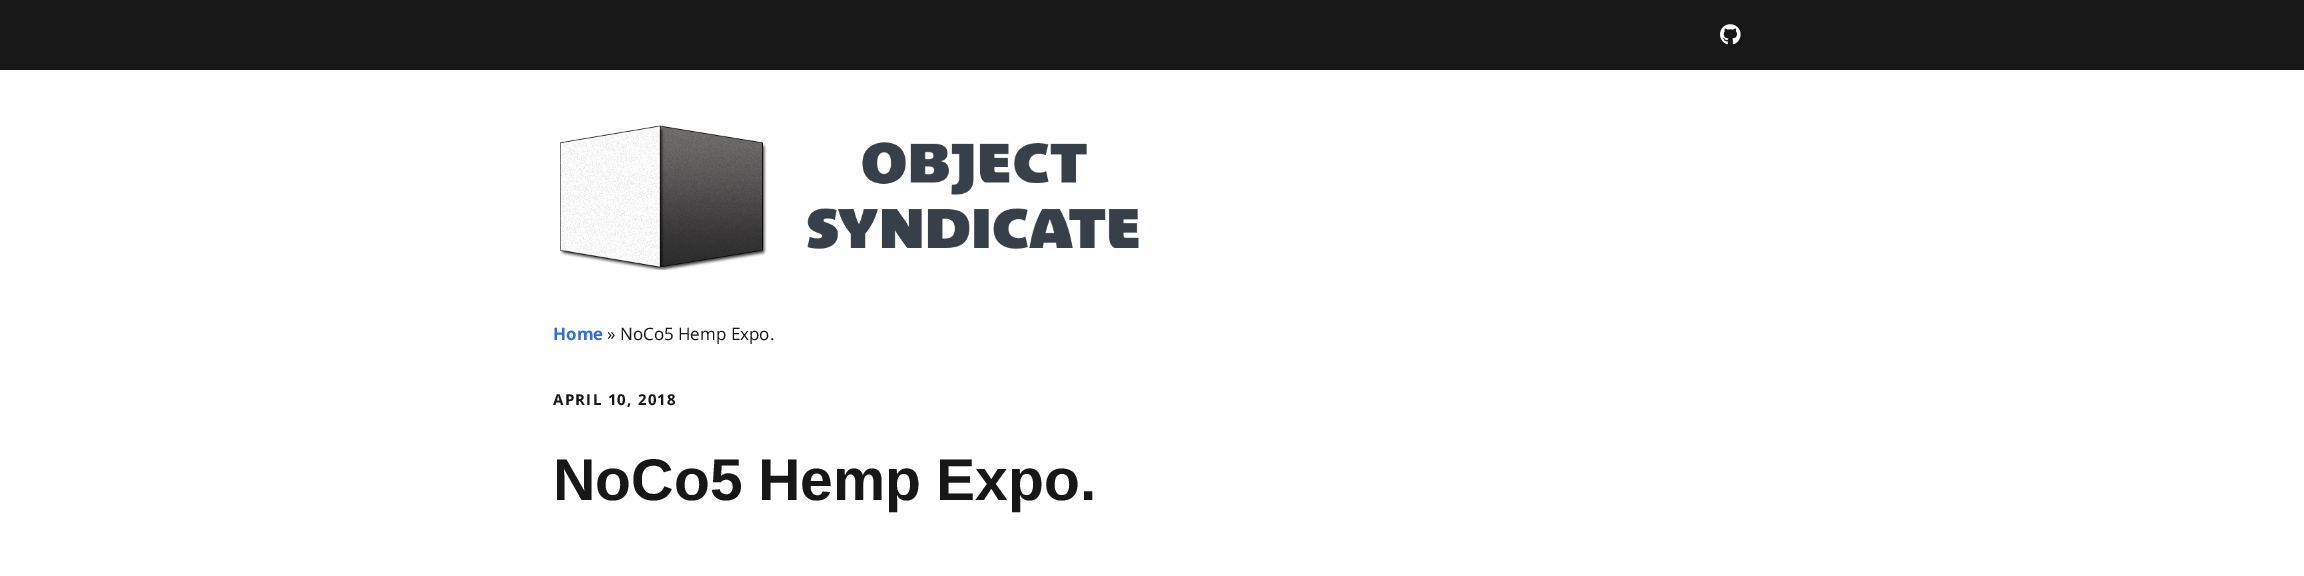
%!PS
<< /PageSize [2304 576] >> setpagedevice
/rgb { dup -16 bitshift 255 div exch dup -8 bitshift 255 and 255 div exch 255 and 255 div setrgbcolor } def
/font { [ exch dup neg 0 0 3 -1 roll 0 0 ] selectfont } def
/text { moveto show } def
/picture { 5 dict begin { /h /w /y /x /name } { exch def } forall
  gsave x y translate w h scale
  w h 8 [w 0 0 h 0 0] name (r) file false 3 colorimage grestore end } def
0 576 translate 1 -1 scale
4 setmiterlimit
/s1 { /OpenSans-Bold 17 font 16#3070D1 rgb } def
/s2 { /OpenSans-Regular 17 font 16#171717 rgb } def
16#171717 rgb
0 0 2304 576 rectfill
(pic1.raw) 1720 24 21 21 picture
16#FFFFFF rgb
0 70 2304 506 rectfill
(pic2.raw) 560 125 579 145 picture
s1
(Home) 553 340 text
s2
(» NoCo5 Hemp Expo.) 607 340 text
/OpenSans-Bold 15 font
553 405 moveto 1.25 0 (APRIL 10, 2018) ashow
/LiberationSans-Bold 58.75 font
553 500 moveto -1 0 32 (NoCo5 Hemp Expo.) widthshow
showpage
